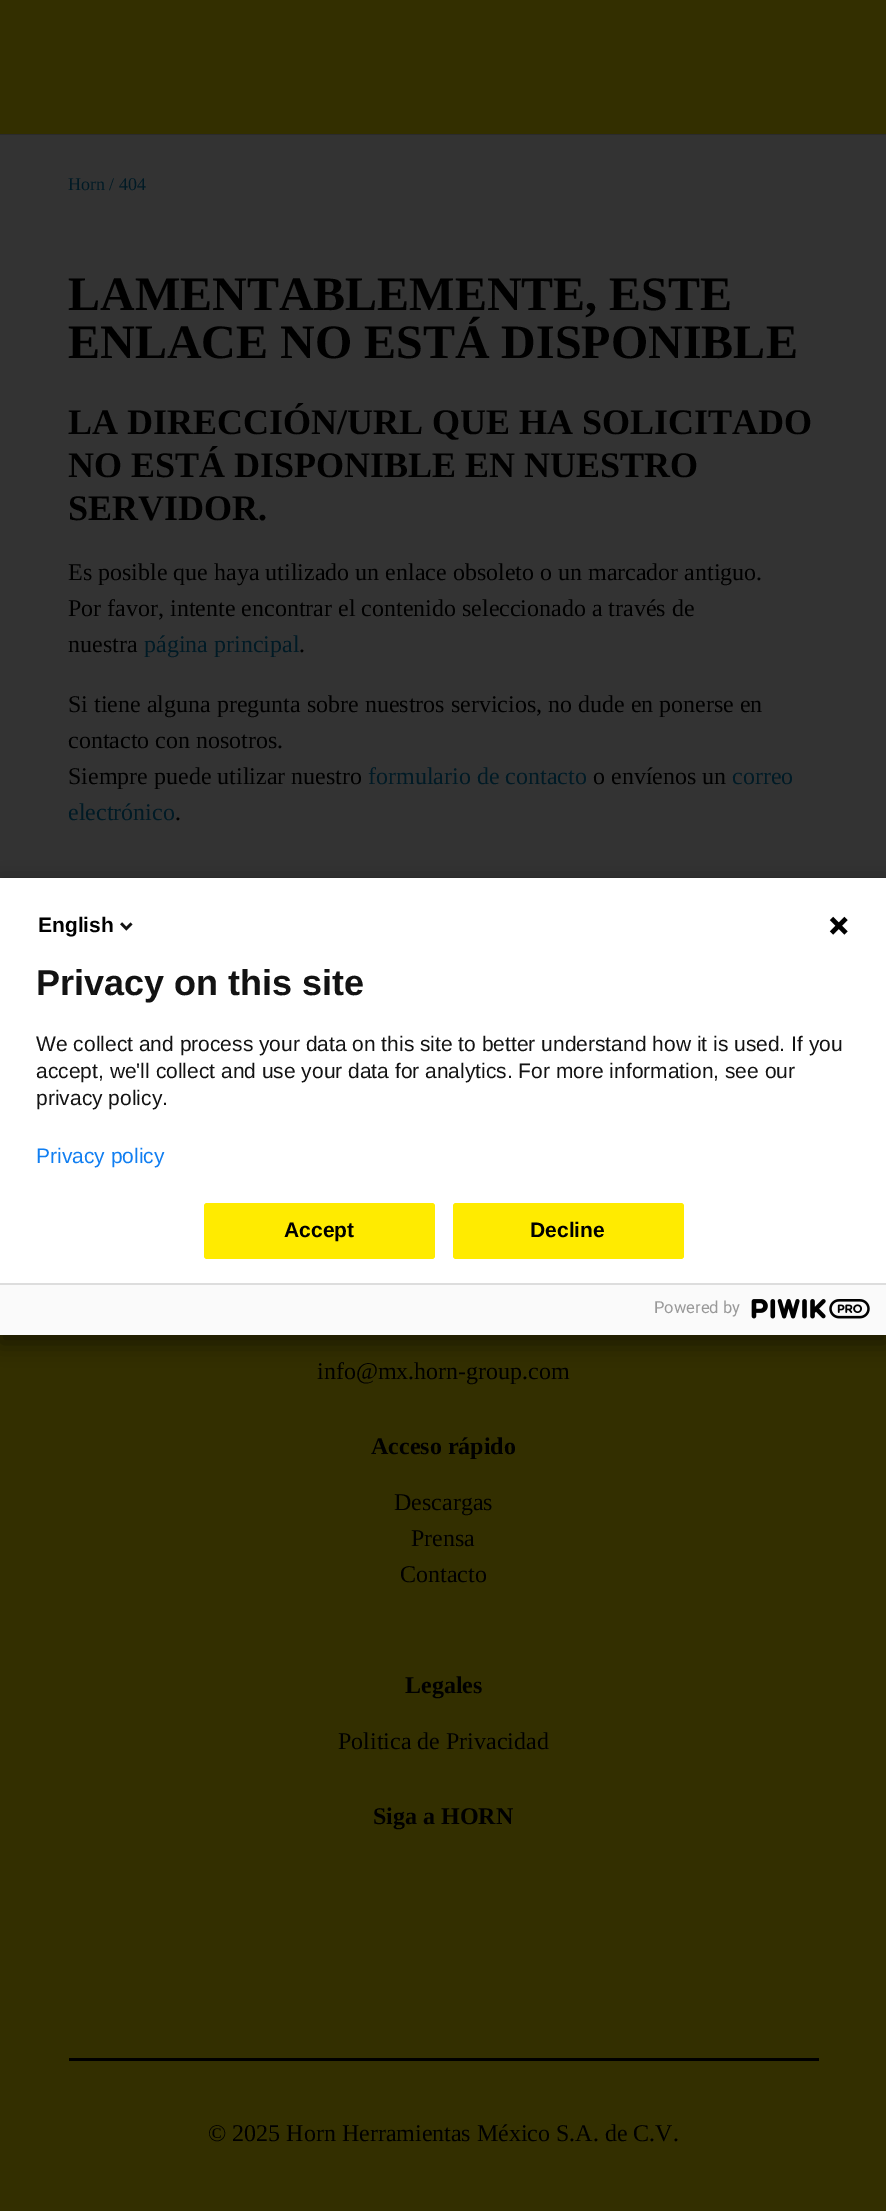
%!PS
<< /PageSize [886 2211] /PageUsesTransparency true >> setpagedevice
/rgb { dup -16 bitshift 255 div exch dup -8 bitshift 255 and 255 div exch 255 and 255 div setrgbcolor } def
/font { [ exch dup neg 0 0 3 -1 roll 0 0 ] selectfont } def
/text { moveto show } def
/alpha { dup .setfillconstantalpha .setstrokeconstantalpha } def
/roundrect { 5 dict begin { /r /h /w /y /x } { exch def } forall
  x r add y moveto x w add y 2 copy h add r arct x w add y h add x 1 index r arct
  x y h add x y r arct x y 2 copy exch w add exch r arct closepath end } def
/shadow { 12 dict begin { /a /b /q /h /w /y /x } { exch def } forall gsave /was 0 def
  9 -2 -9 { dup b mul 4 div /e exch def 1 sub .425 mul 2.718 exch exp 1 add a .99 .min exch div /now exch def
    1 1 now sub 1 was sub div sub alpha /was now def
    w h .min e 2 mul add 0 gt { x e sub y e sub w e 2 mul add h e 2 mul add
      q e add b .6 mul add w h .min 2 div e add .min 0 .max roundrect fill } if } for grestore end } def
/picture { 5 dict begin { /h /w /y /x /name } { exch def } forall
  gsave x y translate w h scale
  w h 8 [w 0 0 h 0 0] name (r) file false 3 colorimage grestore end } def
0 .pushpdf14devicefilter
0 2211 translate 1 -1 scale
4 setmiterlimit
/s1 { /LiberationSerif-Regular 18 font 16#001A25 rgb } def
/s2 { /LiberationSerif-Bold 48 font 16#000000 rgb } def
/s3 { /LiberationSerif-Bold 36 font 16#000000 rgb } def
/s4 { /LiberationSerif-Regular 24 font 16#000000 rgb } def
/s5 { /LiberationSerif-Regular 24 font 16#001A25 rgb } def
/s6 { /LiberationSerif-Bold 24 font 16#000000 rgb } def
/s7 { /LiberationSans-Bold 21 font 16#000000 rgb } def
/s8 { /LiberationSans-Bold 36 font 16#131313 rgb } def
/s9 { /LiberationSans-Regular 21 font 16#131313 rgb } def
/s10 { /LiberationSans-Regular 21 font 16#107EF1 rgb } def
/s11 { /Roboto-Regular 16.5 font 16#999999 rgb } def
16#333333 rgb
0 0 886 2211 rectfill
16#2B2B2B rgb
0 134 moveto 0 135 lineto 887 135 lineto 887 2 lineto 886 2 lineto 886 134 lineto closepath fill
16#332F00 rgb
0 0 886 134 rectfill
s1
(Horn / 404) 68 190 text
s2
(LAMENTABLEMENTE, ESTE) 68 310 text
(ENLACE NO ESTÁ DISPONIBLE) 68 358 text
s3
(LA DIRECCIÓN/URL QUE HA SOLICITADO) 68 434 text
(NO ESTÁ DISPONIBLE EN NUESTRO) 68 477 text
(SERVIDOR.) 68 520 text
s4
(Es posible que haya utilizado un enlace obsoleto o un marcador antiguo.) 68 580 text
(Por favor, intente encontrar el contenido seleccionado a través de) 68 616 text
(nuestra) 68 652 text
s5
(página principal) 144 652 text
s4
(.) 299 652 text
(Si tiene alguna pregunta sobre nuestros servicios, no dude en ponerse en) 68 712 text
(contacto con nosotros.) 68 748 text
(Siempre puede utilizar nuestro) 68 784 text
s5
(formulario de contacto) 368 784 text
s4
(o envíenos un) 593 784 text
s5
(correo) 732 784 text
(electrónico) 68 820 text
s4
(.) 175 820 text
16#332F00 rgb
0 1335 886 876 rectfill
s4
(info@mx.horn-group.com) 317 1379 text
s6
(Acceso rápido) 371 1454 text
s4
(Descargas) 394 1510 text
(Prensa) 411 1546 text
(Contacto) 400 1582 text
s6
(Legales) 405 1693 text
s4
(Politica de Privacidad) 338 1749 text
s6
(Siga a HORN) 373 1824 text
69 2058 750 3 rectfill
s4
(© 2025 Horn Herramientas México S.A. de C.V.) 208 2141 text
0 885 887 458 0 11 0.5 shadow
16#FFFFFF rgb
0 878 886 405 rectfill
s7
(English) 38 932 text
(pic1.raw) 120 922 13 9 picture
(pic2.raw) 829 916 19 19 picture
s8
(Privacy on this site) 36 995 text
s9
(We collect and process your data on this site to better understand how it is used. If you) 36 1051 text
(accept, we'll collect and use your data for analytics. For more information, see our) 36 1078 text
(privacy policy.) 36 1105 text
s10
(Privacy policy) 36 1163 text
16#FFEB00 rgb
204 1203 231 56 3 roundrect fill
s7
(Accept) 284 1237 text
16#FFEB00 rgb
453 1203 231 56 3 roundrect fill
s7
(Decline) 530 1237 text
16#FAFAFA rgb
0 1285 886 50 rectfill
16#DDDDDD rgb
0 1283 886 2 rectfill
s11
(Powered by) 654 1313 text
(pic3.raw) 751 1299 119 20 picture
.poppdf14devicefilter showpage
